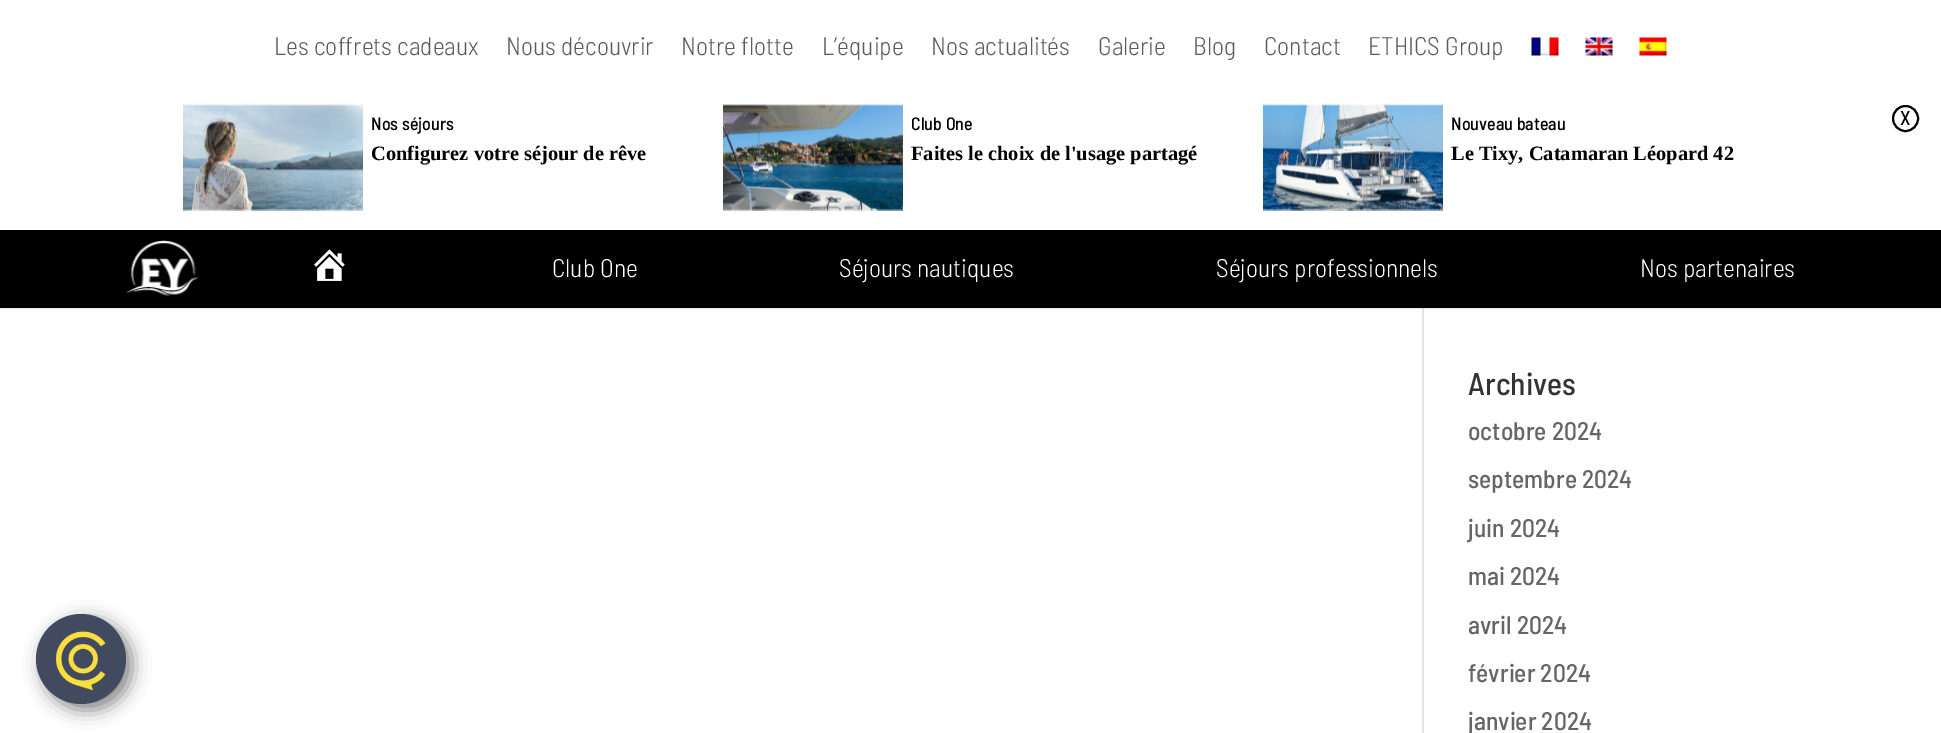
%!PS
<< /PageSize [1941 733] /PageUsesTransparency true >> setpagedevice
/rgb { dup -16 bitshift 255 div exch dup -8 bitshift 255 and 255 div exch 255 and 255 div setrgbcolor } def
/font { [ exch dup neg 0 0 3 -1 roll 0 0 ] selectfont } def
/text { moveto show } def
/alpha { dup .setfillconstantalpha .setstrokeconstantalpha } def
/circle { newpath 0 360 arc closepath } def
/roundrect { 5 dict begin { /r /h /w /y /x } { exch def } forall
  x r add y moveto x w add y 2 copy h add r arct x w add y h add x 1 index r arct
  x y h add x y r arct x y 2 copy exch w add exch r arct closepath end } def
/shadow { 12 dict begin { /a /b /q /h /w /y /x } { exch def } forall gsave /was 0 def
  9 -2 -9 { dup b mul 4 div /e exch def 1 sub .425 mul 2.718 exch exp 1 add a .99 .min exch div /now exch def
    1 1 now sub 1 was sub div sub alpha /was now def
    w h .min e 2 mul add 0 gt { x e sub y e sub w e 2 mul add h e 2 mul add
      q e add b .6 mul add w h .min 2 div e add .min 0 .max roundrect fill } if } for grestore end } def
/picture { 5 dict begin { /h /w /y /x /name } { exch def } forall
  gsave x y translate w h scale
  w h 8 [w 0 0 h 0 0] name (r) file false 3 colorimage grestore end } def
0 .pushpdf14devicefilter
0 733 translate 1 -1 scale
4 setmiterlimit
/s1 { /BarlowSemiCondensed-Light 25.5 font 16#5B5B5B rgb } def
/s2 { /BarlowSemiCondensed-Medium 18 font 16#000000 rgb } def
/s3 { /LiberationSerif-Bold 20.4 font 16#000000 rgb } def
/s4 { /BarlowSemiCondensed-Medium 20 font 16#000000 rgb } def
/s5 { /BarlowSemiCondensed-Light 25.5 font 16#FFFFFF rgb } def
/s6 { /BarlowSemiCondensed-Medium 31.5 font 16#333333 rgb } def
/s7 { /BarlowSemiCondensed-Medium 25.5 font 16#666666 rgb } def
16#FFFFFF rgb
0 0 1941 733 rectfill
16#E6E6E6 rgb
0 308 1941 1 rectfill
16#808080 rgb
42 620 90 90 45 9 1 shadow
16#424A60 rgb
81 659 45 circle fill
(pic1.raw) 56 631 50 60 picture
s1
(Les coffrets cadeaux) 274 55 text
(Nous découvrir) 506 55 text
(Notre flotte) 681 55 text
(L’équipe) 822 55 text
(Nos actualités) 931 55 text
(Galerie) 1098 55 text
(Blog) 1193 55 text
(Contact) 1264 55 text
(ETHICS Group) 1368 55 text
(pic2.raw) 1531 37 28 19 picture
(pic3.raw) 1585 37 28 19 picture
(pic4.raw) 1639 37 28 19 picture
16#000000 rgb
0 230 1941 78 rectfill
(pic5.raw) 183 104 180 107 picture
s2
(Nos séjours) 371 130 text
s3
(Configurez votre séjour de rêve) 371 160 text
(pic6.raw) 723 104 180 107 picture
s2
(Club One) 911 130 text
s3
(Faites le choix de l'usage partagé) 911 160 text
(pic7.raw) 1263 104 180 107 picture
s2
(Nouveau bateau) 1451 130 text
s3
(Le Tixy, Catamaran Léopard 42) 1451 160 text
2 setlinewidth
1905.5 118.5 12.5 circle stroke
s4
(X) 1900 125 text
(pic8.raw) 126 240 73 56 picture
(pic9.raw) 314 249 31 32 picture
s5
(Club One) 552 277 text
(Séjours nautiques) 839 277 text
(Séjours professionnels) 1216 277 text
(Nos partenaires) 1640 277 text
16#E2E2E2 rgb
1422 309 2 424 rectfill
16#CBCBCB rgb
1422 308 2 1 rectfill
s6
(Archives) 1468 395 text
s7
(octobre 2024) 1468 440 text
(septembre 2024) 1468 488 text
(juin 2024) 1468 537 text
(mai 2024) 1468 585 text
(avril 2024) 1468 634 text
(février 2024) 1468 682 text
(janvier 2024) 1468 730 text
.poppdf14devicefilter showpage
